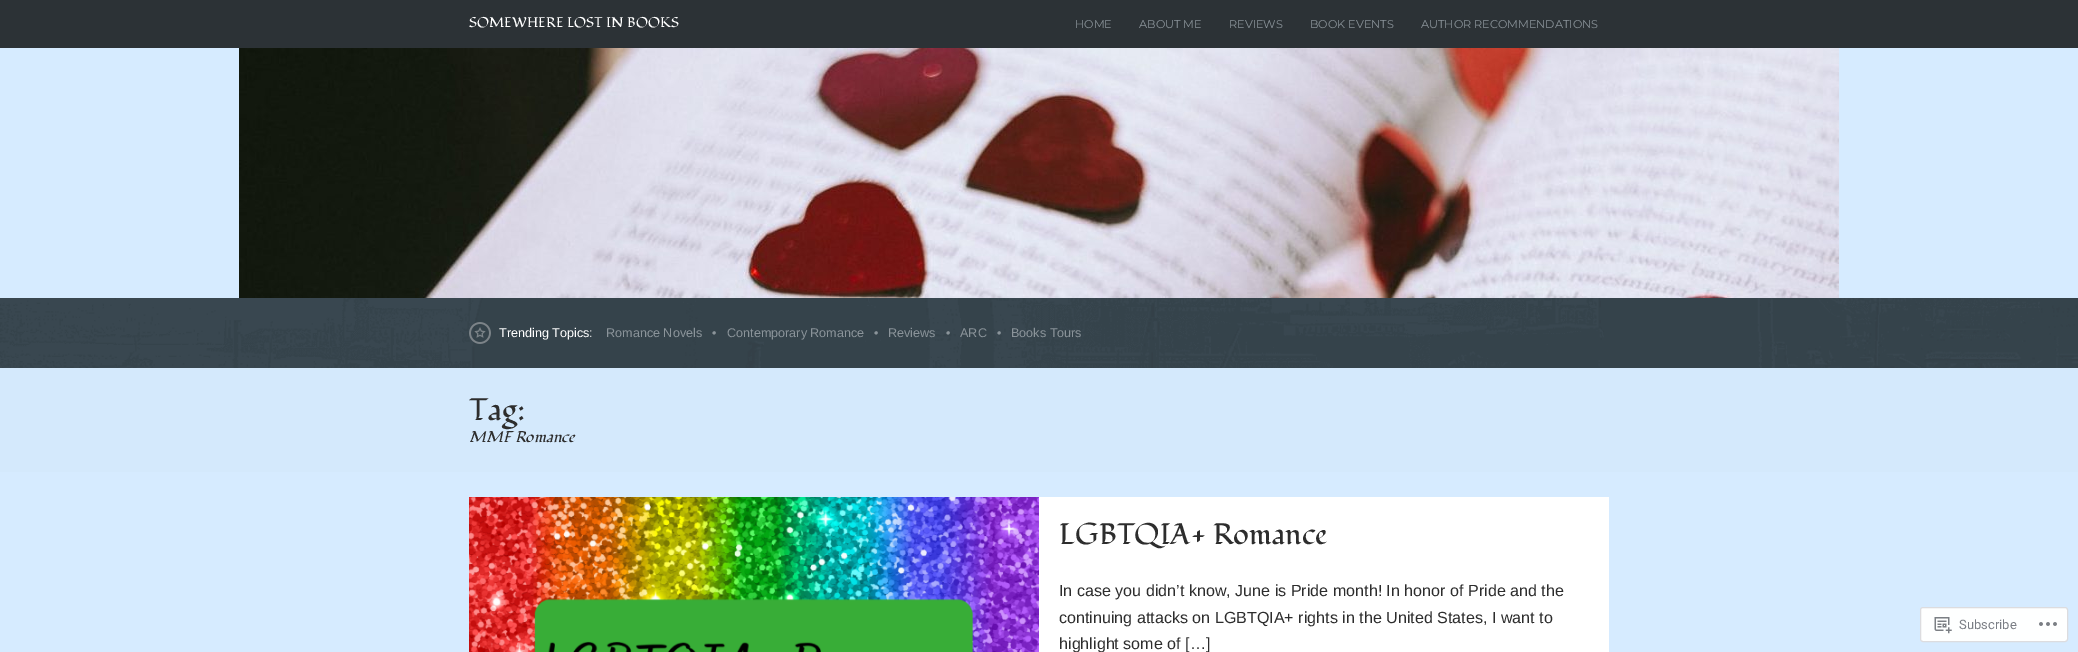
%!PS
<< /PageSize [2078 652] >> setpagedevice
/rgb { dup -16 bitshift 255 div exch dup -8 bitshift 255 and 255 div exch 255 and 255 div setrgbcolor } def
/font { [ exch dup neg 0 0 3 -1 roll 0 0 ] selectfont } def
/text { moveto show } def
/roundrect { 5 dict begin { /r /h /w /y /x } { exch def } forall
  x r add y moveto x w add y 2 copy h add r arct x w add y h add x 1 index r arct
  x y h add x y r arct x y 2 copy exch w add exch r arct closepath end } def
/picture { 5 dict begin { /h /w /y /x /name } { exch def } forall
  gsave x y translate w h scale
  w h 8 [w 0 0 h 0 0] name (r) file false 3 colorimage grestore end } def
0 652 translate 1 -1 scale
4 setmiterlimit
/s1 { /Fondamento-Regular 14 font 16#FFFFFF rgb } def
/s2 { /Montserrat-Regular 11.25 font 16#8B949A rgb } def
/s3 { /LiberationSans-Regular 12.6 font 16#FFFFFF rgb } def
/s4 { /LiberationSans-Regular 12.6 font 16#8B949A rgb } def
/s5 { /Fondamento-Regular 31 font 16#2D2D2D rgb } def
/s6 { /Fondamento-Italic 15.5 font 16#2D2D2D rgb } def
/s7 { /Fondamento-Regular 29.5 font 16#2D2D2D rgb } def
/s8 { /LiberationSans-Regular 16.1 font 16#2D2D2D rgb } def
/s9 { /Roboto-Regular 13 font 16#7A7E85 rgb } def
16#D6EBFF rgb
0 0 2078 652 rectfill
16#2C3236 rgb
0 0 2078 48 rectfill
s1
(SOMEWHERE LOST IN BOOKS) 469 27 text
s2
(HOME) 1075 28 text
(ABOUT ME) 1139 28 text
(REVIEWS) 1229 28 text
(BOOK EVENTS) 1310 28 text
(AUTHOR RECOMMENDATIONS) 1421 28 text
(pic1.raw) 239 48 1600 250 picture
(pic2.raw) 0 298 2078 70 picture
(pic3.raw) 469 322 22 22 picture
s3
(Trending Topics:) 499 337 text
s4
(Romance Novels) 606 337 text
(•) 712 337 text
(Contemporary Romance) 727 337 text
(•) 874 337 text
(Reviews) 888 337 text
(•) 946 337 text
(ARC) 960 337 text
(•) 997 337 text
(Books Tours) 1011 337 text
16#D4E9FC rgb
0 368 2078 104 rectfill
s5
(Tag:) 469 420 text
s6
(MMF Romance) 469 442 text
(pic4.raw) 469 497 570 155 picture
16#FFFFFF rgb
1039 497 570 155 rectfill
s7
(LGBTQIA+ Romance) 1059 544 text
s8
(In case you didn’t know, June is Pride month! In honor of Pride and the) 1059 596 text
(continuing attacks on LGBTQIA+ rights in the United States, I want to) 1059 623 text
(highlight some of […]) 1059 649 text
16#FEFFFF rgb
1920.5 607.5 147 34 2.5 roundrect gsave fill grestore
16#DCDCDF rgb
stroke
(pic5.raw) 1934 617 18 17 picture
s9
(Subscribe) 1959 629 text
(pic6.raw) 2039 622 18 4 picture
showpage
